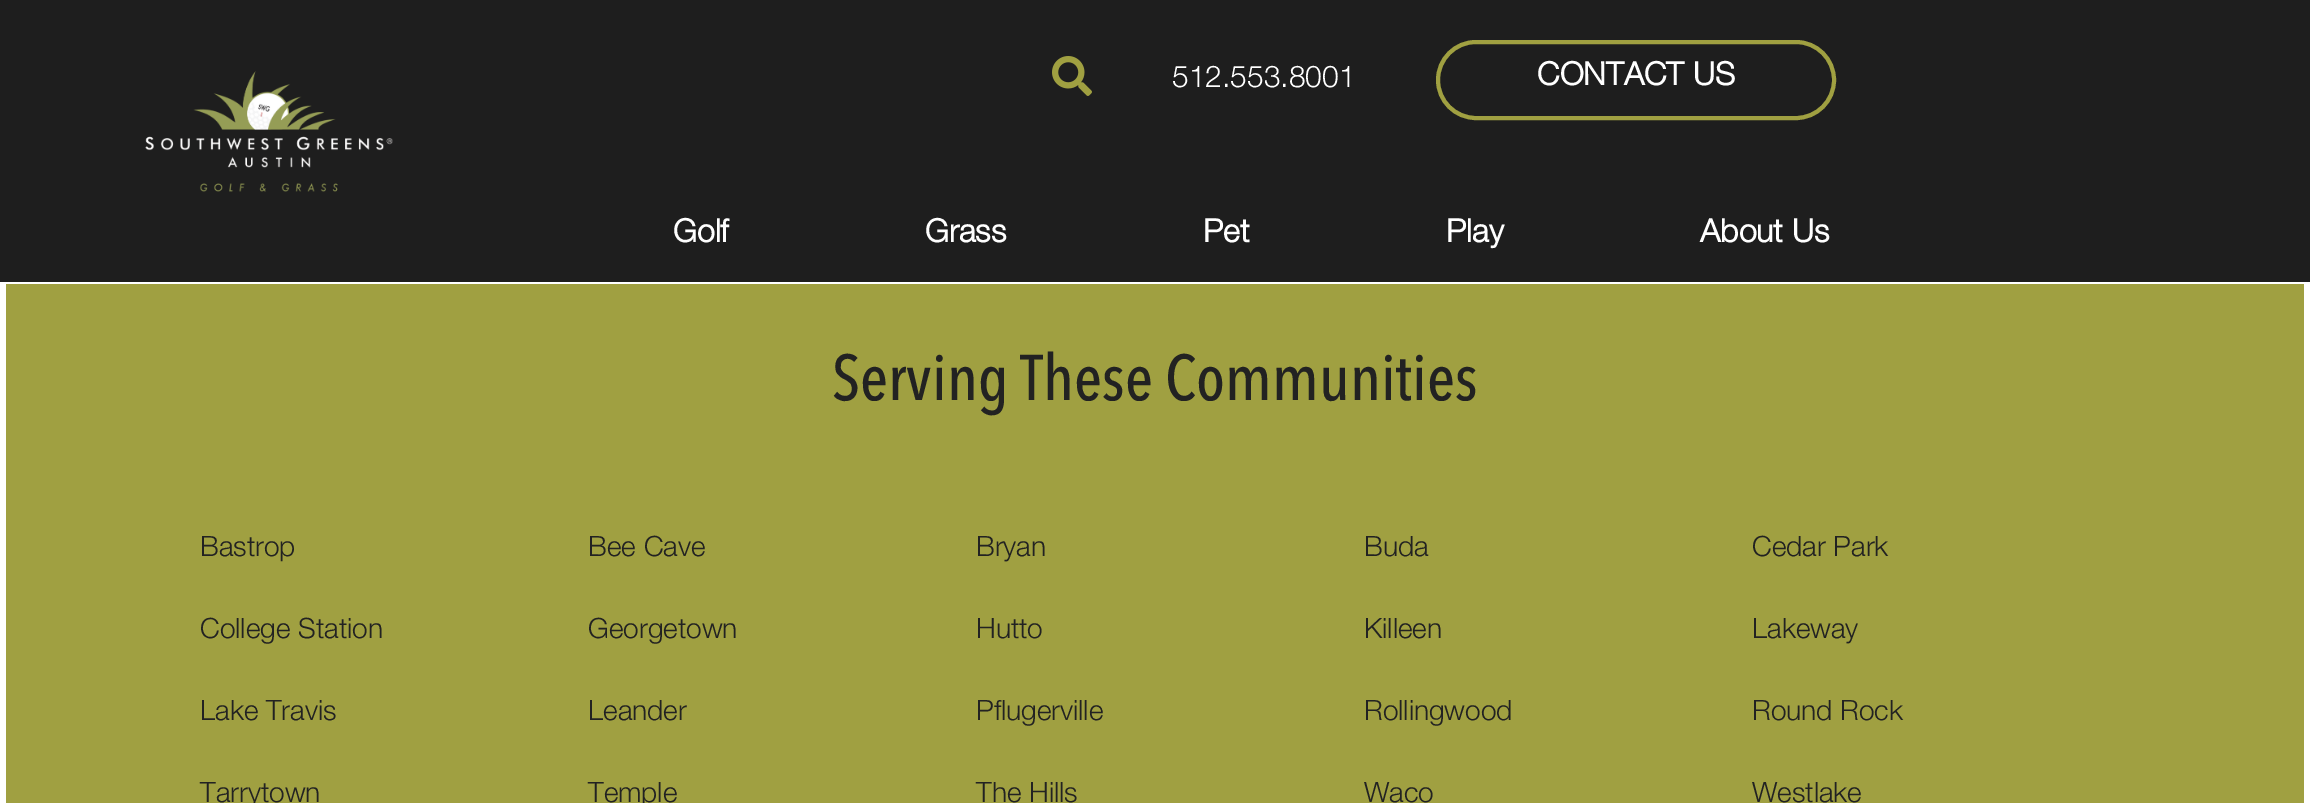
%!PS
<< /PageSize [2310 803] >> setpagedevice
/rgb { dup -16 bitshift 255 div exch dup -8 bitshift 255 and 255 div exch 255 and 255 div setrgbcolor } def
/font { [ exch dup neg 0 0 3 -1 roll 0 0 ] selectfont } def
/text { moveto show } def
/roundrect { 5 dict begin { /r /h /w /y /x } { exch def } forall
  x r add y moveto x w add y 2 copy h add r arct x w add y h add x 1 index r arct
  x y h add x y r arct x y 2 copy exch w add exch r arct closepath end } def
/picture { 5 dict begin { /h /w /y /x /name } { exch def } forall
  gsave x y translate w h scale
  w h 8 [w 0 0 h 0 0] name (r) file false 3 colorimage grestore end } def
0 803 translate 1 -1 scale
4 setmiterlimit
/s1 { /HelveticaNeue-Light 30 font 16#FFFFFF rgb } def
/s2 { /HelveticaNeue-Bold 32 font 16#FFFFFF rgb } def
/s3 { /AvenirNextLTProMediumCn-Regular 64 font 16#222222 rgb } def
/s4 { /HelveticaNeue-Light 28 font 16#222222 rgb } def
16#FFFFFF rgb
0 0 2310 803 rectfill
16#1E1E1E rgb
0 0 2310 282 rectfill
(pic1.raw) 145 71 248 121 picture
(pic2.raw) 1052 56 40 40 picture
s1
(512.553.8001) 1172 87 text
16#A0A041 rgb
4 setlinewidth
1438 42 396 76 38 roundrect stroke
s2
(CONTACT US) 1537 85 text
(Golf) 673 242 text
(Grass) 925 242 text
(Pet) 1203 242 text
(Play) 1446 242 text
(About Us) 1700 242 text
16#A0A041 rgb
6 284 2298 519 rectfill
s3
(Serving These Communities) 832 400 text
s4
(Bastrop) 200 556 text
(Bee Cave) 588 556 text
(Bryan) 976 556 text
(Buda) 1364 556 text
(Cedar Park) 1752 556 text
(College Station) 200 638 text
(Georgetown) 588 638 text
(Hutto) 976 638 text
(Killeen) 1364 638 text
(Lakeway) 1752 638 text
(Lake Travis) 200 720 text
(Leander) 588 720 text
(Pflugerville) 976 720 text
(Rollingwood) 1364 720 text
(Round Rock) 1752 720 text
(Tarrytown) 200 802 text
(Temple) 588 802 text
(The Hills) 976 802 text
(Waco) 1364 802 text
(Westlake) 1752 802 text
showpage
